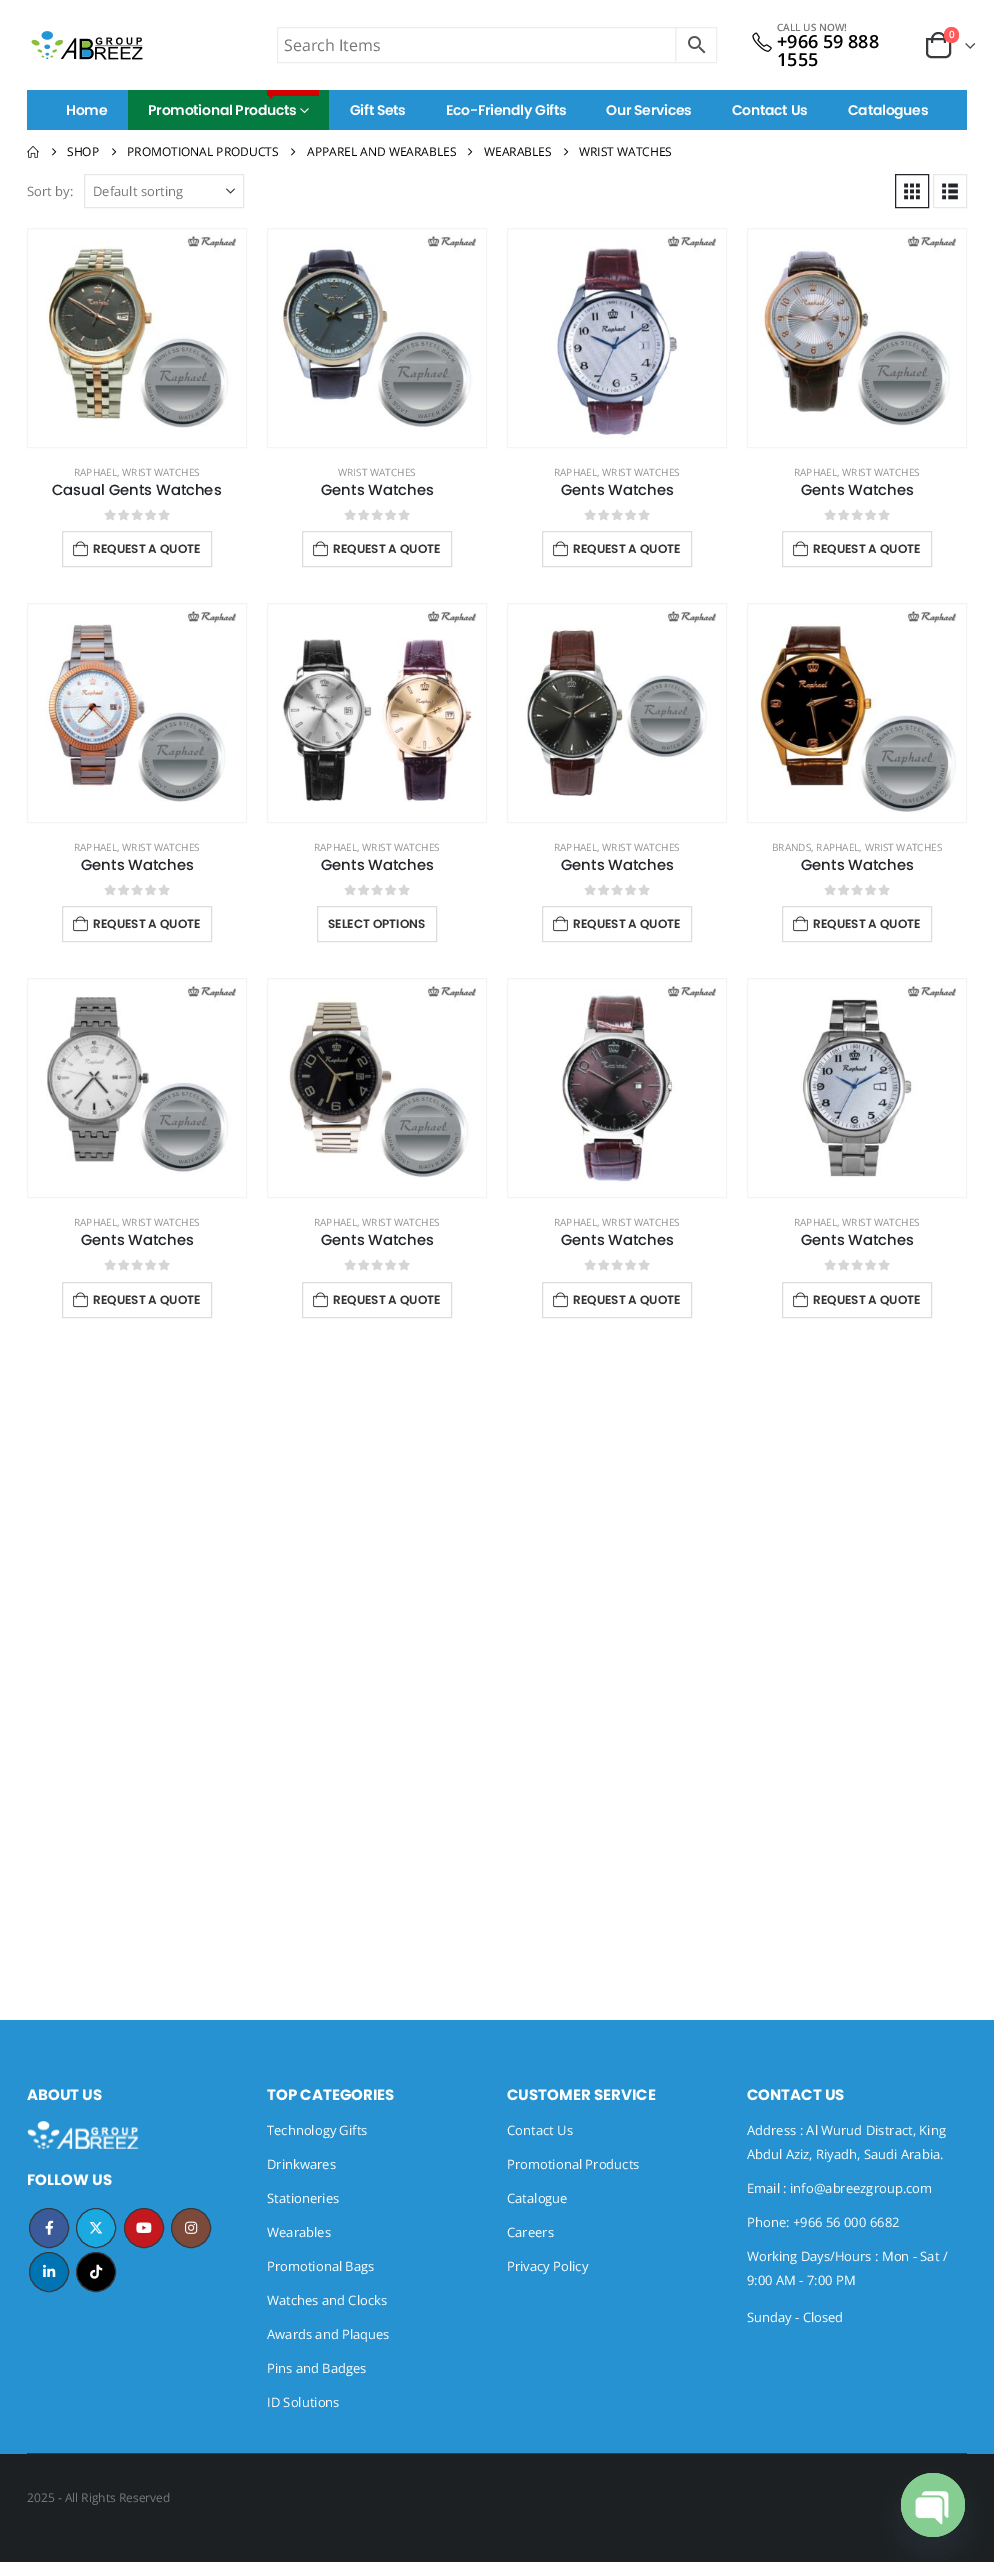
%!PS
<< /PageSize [994 2562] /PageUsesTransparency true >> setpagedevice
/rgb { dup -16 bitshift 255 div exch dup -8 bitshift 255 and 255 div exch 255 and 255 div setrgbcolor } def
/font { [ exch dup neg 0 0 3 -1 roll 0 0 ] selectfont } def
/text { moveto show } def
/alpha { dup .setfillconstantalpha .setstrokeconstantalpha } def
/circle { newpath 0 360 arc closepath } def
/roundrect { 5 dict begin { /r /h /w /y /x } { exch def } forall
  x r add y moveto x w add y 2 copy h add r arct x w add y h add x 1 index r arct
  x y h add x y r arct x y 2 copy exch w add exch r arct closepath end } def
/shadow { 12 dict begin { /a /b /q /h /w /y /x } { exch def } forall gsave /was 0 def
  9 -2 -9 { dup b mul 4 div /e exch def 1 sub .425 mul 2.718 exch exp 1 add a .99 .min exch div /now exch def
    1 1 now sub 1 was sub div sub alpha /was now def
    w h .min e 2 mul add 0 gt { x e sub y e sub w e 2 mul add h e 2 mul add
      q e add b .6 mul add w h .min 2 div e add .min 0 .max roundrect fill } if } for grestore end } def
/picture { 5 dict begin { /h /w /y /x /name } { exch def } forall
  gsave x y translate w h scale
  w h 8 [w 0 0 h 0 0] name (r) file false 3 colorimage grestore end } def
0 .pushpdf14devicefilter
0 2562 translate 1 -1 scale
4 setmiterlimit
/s1 { /OpenSans-Regular 16 font 16#777777 rgb } def
/s2 { /OpenSans-SemiBold 10 font 16#777777 rgb } def
/s3 { /OpenSans-SemiBold 18 font 16#000000 rgb } def
/s4 { /OpenSans-SemiBold 10 font 16#FFFFFF rgb } def
/s5 { /OpenSans-Regular 12 font 16#000000 rgb } def
/s6 { /OpenSans-Regular 13 font 16#777777 rgb } def
/s7 { /OpenSans-Regular 10 font 16#929292 rgb } def
/s8 { /Poppins-Medium 14.75 font 16#222529 rgb } def
/s9 { /Poppins-SemiBold 12 font 16#333333 rgb } def
/s10 { /Poppins-Bold 15 font 16#FFFFFF rgb } def
/s11 { /OpenSans-Regular 13 font 16#FFFFFF rgb } def
/s12 { /OpenSans-Regular 12 font 16#777777 rgb } def
16#FFFFFF rgb
0 0 994 2562 rectfill
(pic1.raw) 31 31 112 29 picture
16#EEEEEE rgb
675.5 27.5 41 35 rectstroke
277.5 27.5 398 35 rectstroke
s1
(Search Items) 284 51 text
(pic2.raw) 688 36 18 18 picture
(pic3.raw) 752 32 20 20 picture
s2
(CALL US NOW!) 777 31 text
s3
(+966 59 888) 777 48 text
(1555) 777 66 text
16#383B3E rgb
2 setlinewidth
927 39 moveto 950 39 lineto 950 53 lineto 950 55 948 57 946 57 curveto 931 57 lineto 929 57 927 55 927 53 curveto closepath stroke
938.5 32 moveto 942.5 32 946 35.5 946 39.5 curveto 946 43 lineto 931 43 lineto 931 39.5 lineto 931 35.5 934.5 32 938.5 32 curveto closepath 938.5 34 moveto 944 34 944 39 944 43 curveto 933 43 lineto 933 39 933 34 938.5 34 curveto closepath eofill
16#FF5B5B rgb
944 27 15 16 7.5 roundrect fill
s4
(0) 949 38 text
(pic4.raw) 965 43 11 6 picture
16#2792D1 rgb
27 90 940 40 rectfill
/Poppins-SemiBold 14 font
16#FFFFFF rgb
66 115 moveto -0.3 0 (Home) ashow
16#047B40 rgb
128 90 201 40 rectfill
16#D30000 rgb
267 90 52 6 rectfill
269 96 moveto 273 96 lineto 271 99 lineto closepath fill
16#FFFFFF rgb
148 115 moveto -0.3 0 (Promotional Products) ashow
(pic5.raw) 300 108 9 6 picture
350 115 moveto -0.3 0 (Gift Sets) ashow
446 115 moveto -0.3 0 (Eco-Friendly Gifts) ashow
606 115 moveto -0.3 0 (Our Services) ashow
732 115 moveto -0.3 0 (Contact Us) ashow
848 115 moveto -0.3 0 (Catalogues) ashow
(pic6.raw) 27 146 12 12 picture
(pic7.raw) 52 148 5 8 picture
s5
(SHOP) 67 156 text
(pic7.raw) 112 148 5 8 picture
(PROMOTIONAL PRODUCTS) 127 156 text
(pic7.raw) 291 148 5 8 picture
(APPAREL AND WEARABLES) 307 156 text
(pic7.raw) 468 148 5 8 picture
(WEARABLES) 484 156 text
(pic7.raw) 564 148 5 8 picture
(WRIST WATCHES) 579 156 text
s6
(Sort by:) 27 196 text
(pic8.raw) 226 188 9 6 picture
16#E7E7E7 rgb
1 setlinewidth
84.5 174.5 159 33 rectstroke
s6
(Default sorting) 93 196 text
16#222529 rgb
895.5 174.5 33 33 rectstroke
(pic9.raw) 904 183 16 17 picture
16#E7E7E7 rgb
933.5 174.5 33 33 rectstroke
(pic10.raw) 942 183 16 17 picture
16#F4F4F4 rgb
27.5 228.5 219 219 rectstroke
(pic11.raw) 46 235 190 193 picture
s7
(RAPHAEL, WRIST WATCHES) 74 476 text
s8
(Casual Gents Watches) 52 495 text
(pic12.raw) 104 509 66 12 picture
16#DDDDDD rgb
62.5 531.5 149 35 rectstroke
(pic13.raw) 73 541 15 16 picture
s9
(REQUEST A QUOTE) 93 553 text
16#F4F4F4 rgb
267.5 228.5 219 219 rectstroke
(pic14.raw) 280 235 196 192 picture
s7
(WRIST WATCHES) 338 476 text
s8
(Gents Watches) 321 495 text
(pic12.raw) 344 509 66 12 picture
16#DDDDDD rgb
302.5 531.5 149 35 rectstroke
(pic13.raw) 313 541 15 16 picture
s9
(REQUEST A QUOTE) 333 553 text
16#F4F4F4 rgb
507.5 228.5 219 219 rectstroke
(pic15.raw) 554 235 162 203 picture
s7
(RAPHAEL, WRIST WATCHES) 554 476 text
s8
(Gents Watches) 561 495 text
(pic12.raw) 584 509 66 12 picture
16#DDDDDD rgb
542.5 531.5 149 35 rectstroke
(pic13.raw) 553 541 15 16 picture
s9
(REQUEST A QUOTE) 573 553 text
16#F4F4F4 rgb
747.5 228.5 219 219 rectstroke
(pic16.raw) 760 235 196 191 picture
s7
(RAPHAEL, WRIST WATCHES) 794 476 text
s8
(Gents Watches) 801 495 text
(pic12.raw) 824 509 66 12 picture
16#DDDDDD rgb
782.5 531.5 149 35 rectstroke
(pic13.raw) 793 541 15 16 picture
s9
(REQUEST A QUOTE) 813 553 text
16#F4F4F4 rgb
27.5 603.5 219 219 rectstroke
(pic17.raw) 40 610 196 192 picture
s7
(RAPHAEL, WRIST WATCHES) 74 851 text
s8
(Gents Watches) 81 870 text
(pic12.raw) 104 884 66 12 picture
16#DDDDDD rgb
62.5 906.5 149 35 rectstroke
(pic13.raw) 73 916 15 16 picture
s9
(REQUEST A QUOTE) 93 928 text
16#F4F4F4 rgb
267.5 603.5 219 219 rectstroke
(pic18.raw) 281 610 196 192 picture
s7
(RAPHAEL, WRIST WATCHES) 314 851 text
s8
(Gents Watches) 321 870 text
(pic12.raw) 344 884 66 12 picture
16#DDDDDD rgb
317.5 906.5 119 35 rectstroke
s9
(SELECT OPTIONS) 328 928 text
16#F4F4F4 rgb
507.5 603.5 219 219 rectstroke
(pic19.raw) 520 610 196 187 picture
s7
(RAPHAEL, WRIST WATCHES) 554 851 text
s8
(Gents Watches) 561 870 text
(pic12.raw) 584 884 66 12 picture
16#DDDDDD rgb
542.5 906.5 149 35 rectstroke
(pic13.raw) 553 916 15 16 picture
s9
(REQUEST A QUOTE) 573 928 text
16#F4F4F4 rgb
747.5 603.5 219 219 rectstroke
(pic20.raw) 760 610 197 203 picture
s7
(BRANDS, RAPHAEL, WRIST WATCHES) 772 851 text
s8
(Gents Watches) 801 870 text
(pic12.raw) 824 884 66 12 picture
16#DDDDDD rgb
782.5 906.5 149 35 rectstroke
(pic13.raw) 793 916 15 16 picture
s9
(REQUEST A QUOTE) 813 928 text
16#F4F4F4 rgb
27.5 978.5 219 219 rectstroke
(pic21.raw) 46 985 190 189 picture
s7
(RAPHAEL, WRIST WATCHES) 74 1226 text
s8
(Gents Watches) 81 1245 text
(pic12.raw) 104 1259 66 12 picture
16#DDDDDD rgb
62.5 1282.5 149 35 rectstroke
(pic13.raw) 73 1292 15 16 picture
s9
(REQUEST A QUOTE) 93 1304 text
16#F4F4F4 rgb
267.5 978.5 219 219 rectstroke
(pic22.raw) 288 985 188 193 picture
s7
(RAPHAEL, WRIST WATCHES) 314 1226 text
s8
(Gents Watches) 321 1245 text
(pic12.raw) 344 1259 66 12 picture
16#DDDDDD rgb
302.5 1282.5 149 35 rectstroke
(pic13.raw) 313 1292 15 16 picture
s9
(REQUEST A QUOTE) 333 1304 text
16#F4F4F4 rgb
507.5 978.5 219 219 rectstroke
(pic23.raw) 561 985 155 199 picture
s7
(RAPHAEL, WRIST WATCHES) 554 1226 text
s8
(Gents Watches) 561 1245 text
(pic12.raw) 584 1259 66 12 picture
16#DDDDDD rgb
542.5 1282.5 149 35 rectstroke
(pic13.raw) 553 1292 15 16 picture
s9
(REQUEST A QUOTE) 573 1304 text
16#F4F4F4 rgb
747.5 978.5 219 219 rectstroke
(pic24.raw) 801 985 155 192 picture
s7
(RAPHAEL, WRIST WATCHES) 794 1226 text
s8
(Gents Watches) 801 1245 text
(pic12.raw) 824 1259 66 12 picture
16#DDDDDD rgb
782.5 1282.5 149 35 rectstroke
(pic13.raw) 793 1292 15 16 picture
s9
(REQUEST A QUOTE) 813 1304 text
16#2792D1 rgb
0 2020 994 434 rectfill
s10
(ABOUT US) 27 2100 text
(pic25.raw) 27 2121 112 28 picture
(FOLLOW US) 27 2185 text
16#3B5A9A rgb
49 2228 19.5 circle gsave fill grestore
16#36393D rgb
stroke
(pic26.raw) 45 2220 9 15 picture
16#1AA9E1 rgb
96 2228 19.5 circle gsave fill grestore
16#36393D rgb
stroke
(pic27.raw) 89 2222 14 12 picture
16#C3191E rgb
144 2228 19.5 circle gsave fill grestore
16#36393D rgb
stroke
(pic28.raw) 136 2222 16 11 picture
16#7C4A3A rgb
191 2228 19.5 circle gsave fill grestore
16#36393D rgb
stroke
(pic29.raw) 185 2221 13 13 picture
16#0073B2 rgb
49 2272 19.5 circle gsave fill grestore
16#36393D rgb
stroke
(pic30.raw) 43 2264 13 13 picture
16#010101 rgb
96 2272 19.5 circle gsave fill grestore
16#36393D rgb
stroke
(pic31.raw) 90 2264 13 15 picture
s10
(TOP CATEGORIES) 267 2100 text
s11
(Technology Gifts) 267 2135 text
(Drinkwares) 267 2169 text
(Stationeries) 267 2203 text
(Wearables) 267 2237 text
(Promotional Bags) 267 2271 text
(Watches and Clocks) 267 2305 text
(Awards and Plaques) 267 2339 text
(Pins and Badges) 267 2373 text
(ID Solutions) 267 2407 text
s10
(CUSTOMER SERVICE) 507 2100 text
s11
(Contact Us) 507 2135 text
(Promotional Products) 507 2169 text
(Catalogue) 507 2203 text
(Careers) 507 2237 text
(Privacy Policy) 507 2271 text
s10
(CONTACT US) 747 2100 text
s11
(Address : Al Wurud Distract, King) 747 2135 text
(Abdul Aziz, Riyadh, Saudi Arabia.) 747 2159 text
(Email : info@abreezgroup.com) 747 2193 text
(Phone: +966 56 000 6682) 747 2227 text
(Working Days/Hours : Mon - Sat /) 747 2261 text
(9:00 AM - 7:00 PM) 747 2285 text
(Sunday - Closed) 747 2322 text
16#36393D rgb
27 2453 940 1 rectfill
16#1C2023 rgb
0 2454 994 108 rectfill
s12
(2025 - All Rights Reserved) 27 2502 text
16#49687E rgb
901 2489 64 64 32 12 0.16 shadow
(pic32.raw) 901 2473 64 64 picture
.poppdf14devicefilter showpage
